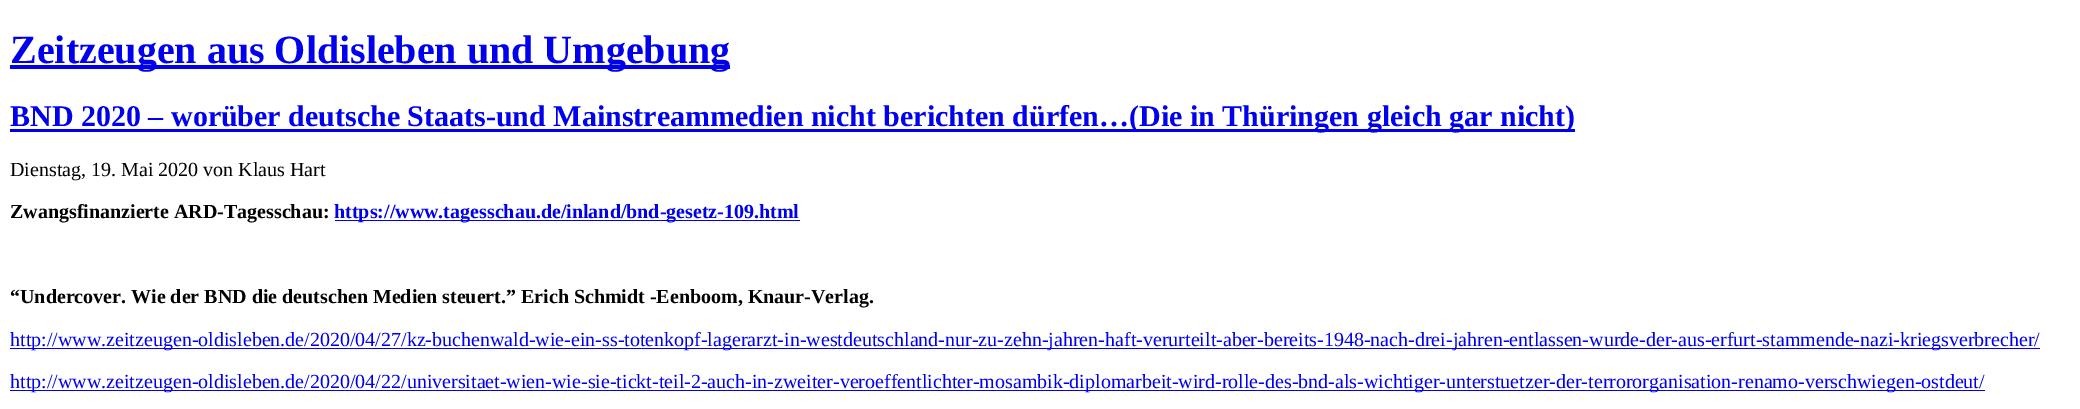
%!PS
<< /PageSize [2080 409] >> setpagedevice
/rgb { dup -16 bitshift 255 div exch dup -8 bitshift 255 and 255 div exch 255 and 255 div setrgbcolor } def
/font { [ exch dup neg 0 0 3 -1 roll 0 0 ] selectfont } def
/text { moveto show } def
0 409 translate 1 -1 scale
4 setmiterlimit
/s1 { /LiberationSerif-Bold 40 font 16#0000EE rgb } def
/s2 { /LiberationSerif-Bold 30 font 16#0000EE rgb } def
/s3 { /LiberationSerif-Regular 20 font 16#000000 rgb } def
/s4 { /LiberationSerif-Bold 20 font 16#000000 rgb } def
/s5 { /LiberationSerif-Bold 20 font 16#0000EE rgb } def
/s6 { /LiberationSerif-Regular 20 font 16#0000EE rgb } def
16#FFFFFF rgb
0 0 2080 409 rectfill
16#0000EE rgb
10 65 720 4 rectfill
s1
(Zeitzeugen aus Oldisleben und Umgebung) 10 63 text
10 129 1565 3 rectfill
s2
(BND 2020 – worüber deutsche Staats-und Mainstreammedien nicht berichten dürfen…\(Die in Thüringen gleich gar nicht\)) 10 126 text
s3
(Dienstag, 19. Mai 2020 von Klaus Hart) 10 176 text
s4
(Zwangsfinanzierte ARD-Tagesschau:) 10 218 text
16#0000EE rgb
335 220 465 1 rectfill
(https://www.tagesschau.de/inland/bnd-gesetz-109.html) 334 218 text
s4
(“Undercover. Wie der BND die deutschen Medien steuert.” Erich Schmidt -Eenboom, Knaur-Verlag.) 10 303 text
16#0000EE rgb
10 348 2030 1 rectfill
s6
(http://www.zeitzeugen-oldisleben.de/2020/04/27/kz-buchenwald-wie-ein-ss-totenkopf-lagerarzt-in-westdeutschland-nur-zu-zehn-jahren-haft-verurteilt-aber-bereits-1948-nach-drei-jahren-entlassen-wurde-der-aus-erfurt-stammende-nazi-kriegsverbrecher/) 10 346 text
10 390 1975 1 rectfill
(http://www.zeitzeugen-oldisleben.de/2020/04/22/universitaet-wien-wie-sie-tickt-teil-2-auch-in-zweiter-veroeffentlichter-mosambik-diplomarbeit-wird-rolle-des-bnd-als-wichtiger-unterstuetzer-der-terrororganisation-renamo-verschwiegen-ostdeut/) 10 388 text
showpage
